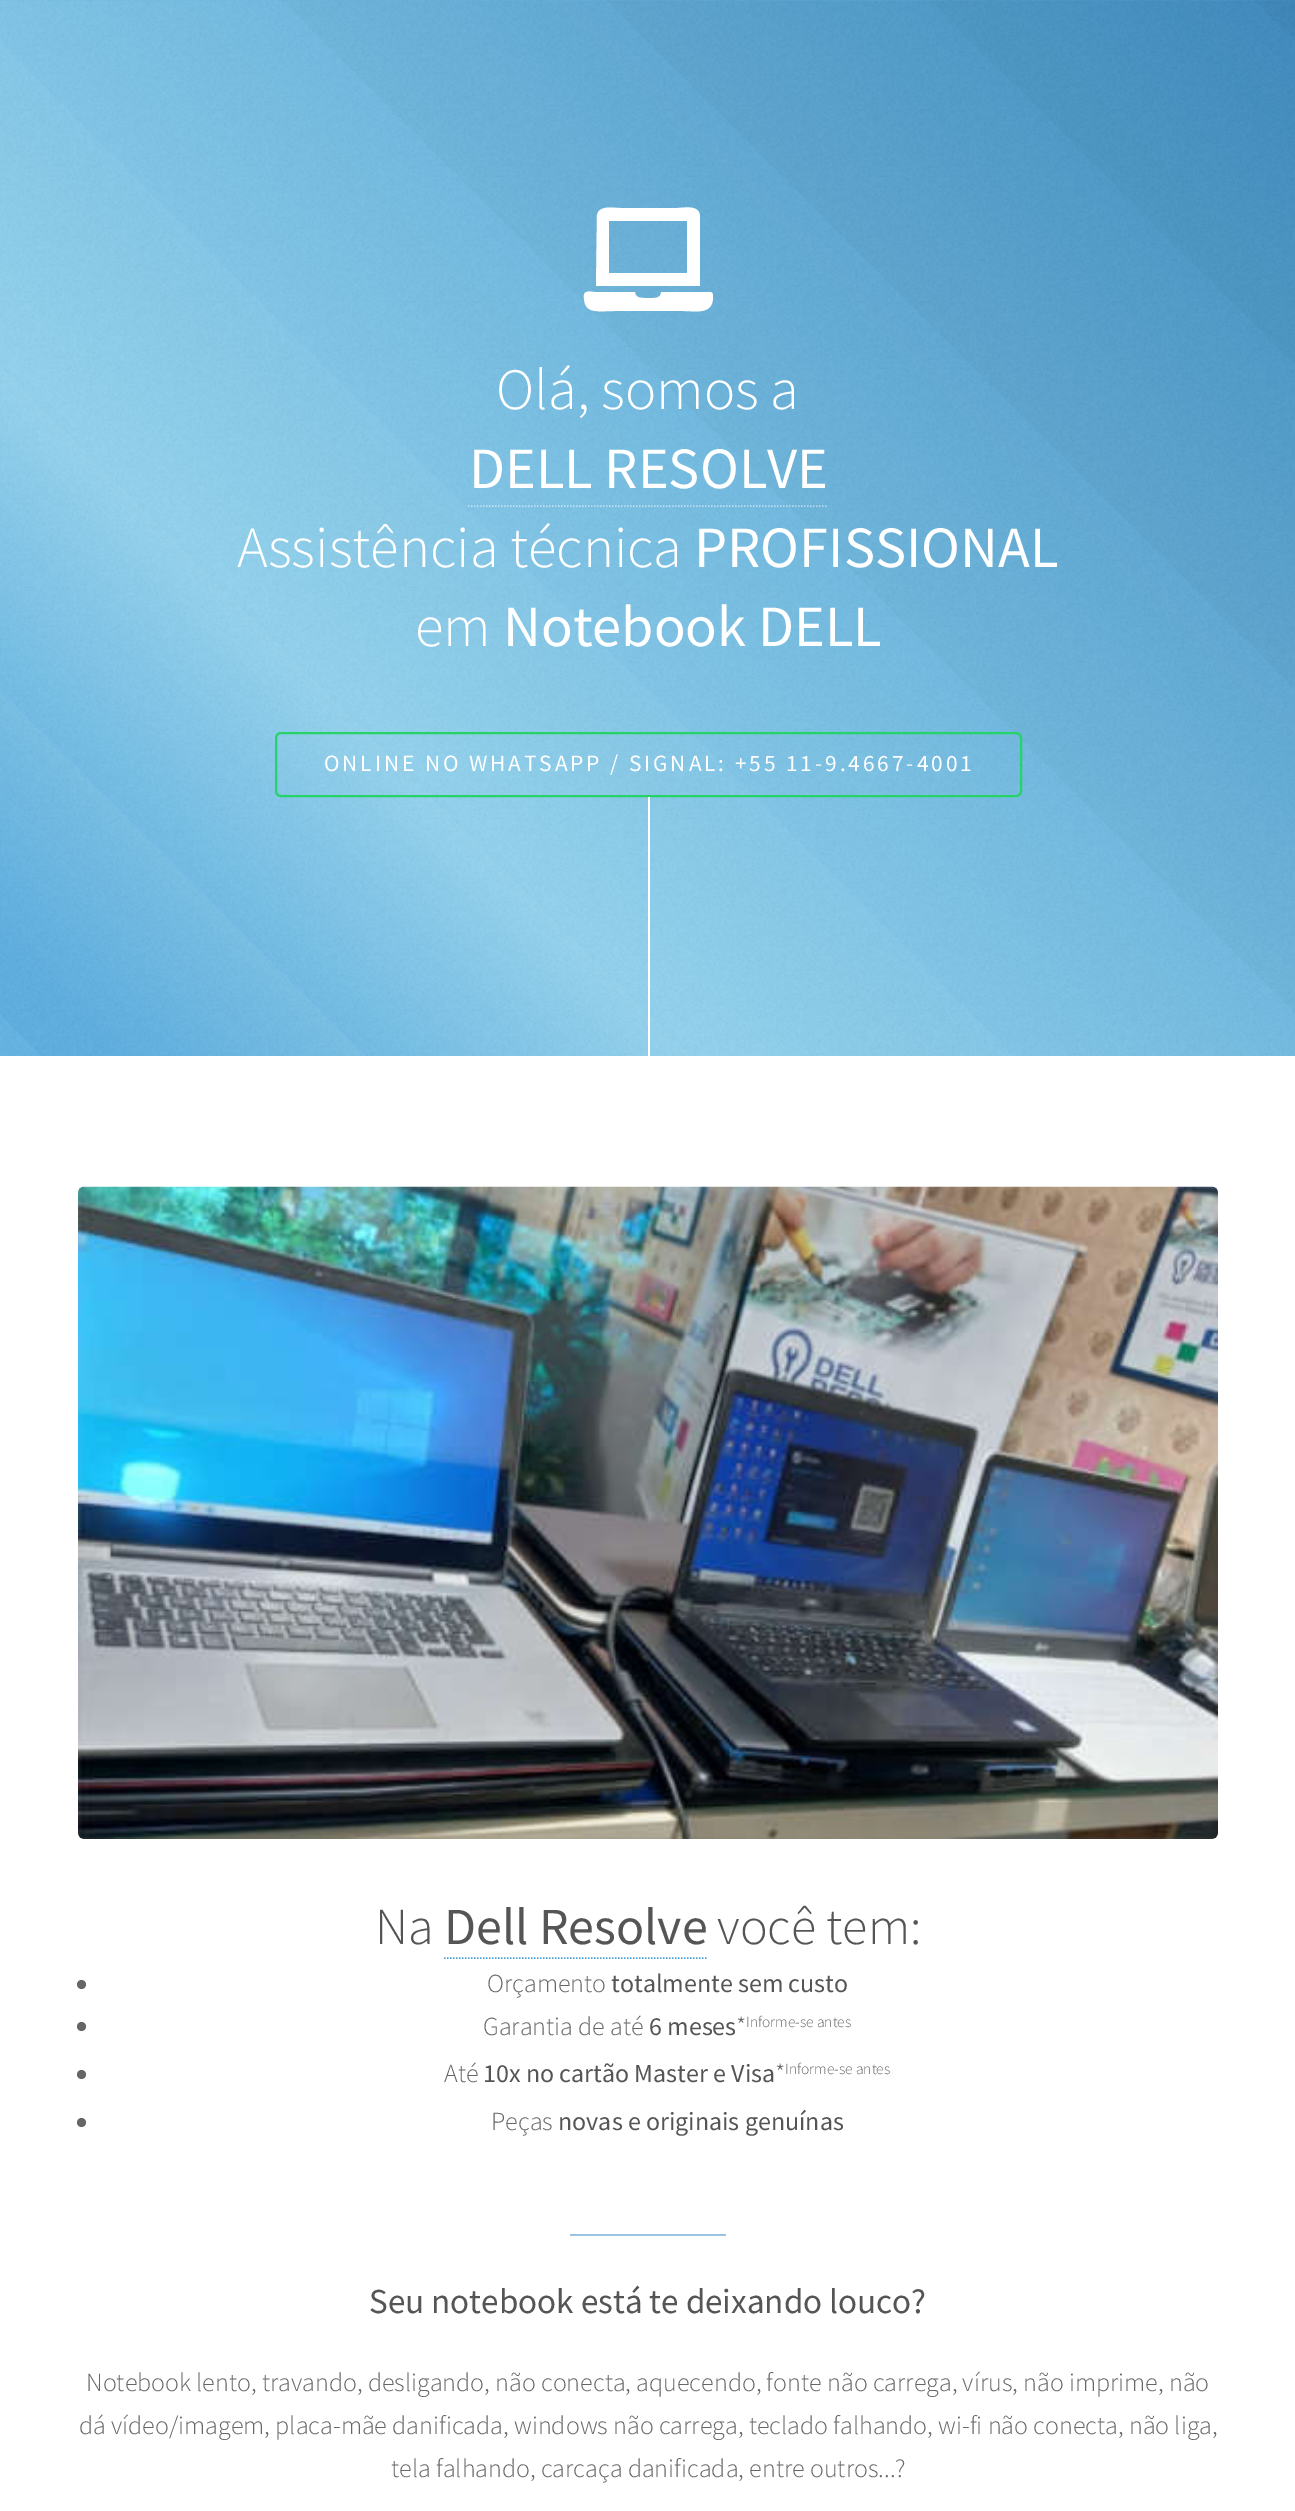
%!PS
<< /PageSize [1295 2511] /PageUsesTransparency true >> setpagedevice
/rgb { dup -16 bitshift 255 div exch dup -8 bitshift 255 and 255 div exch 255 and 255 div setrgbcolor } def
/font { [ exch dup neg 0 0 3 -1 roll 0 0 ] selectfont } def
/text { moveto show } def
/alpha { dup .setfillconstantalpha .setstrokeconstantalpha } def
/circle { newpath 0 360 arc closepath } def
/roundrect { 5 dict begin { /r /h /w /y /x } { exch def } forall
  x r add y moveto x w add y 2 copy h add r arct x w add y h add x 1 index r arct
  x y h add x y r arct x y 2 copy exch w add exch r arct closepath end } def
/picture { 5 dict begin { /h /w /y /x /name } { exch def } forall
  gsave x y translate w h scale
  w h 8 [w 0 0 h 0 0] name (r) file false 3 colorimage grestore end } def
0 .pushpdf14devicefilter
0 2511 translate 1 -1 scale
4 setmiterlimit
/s1 { /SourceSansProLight-Light 58.5 font 16#FFFFFF rgb } def
/s2 { /SourceSansPro-Regular 58.5 font 16#FFFFFF rgb } def
/s3 { /SourceSansProLight-Light 52 font 16#555555 rgb } def
/s4 { /SourceSansPro-Regular 52 font 16#555555 rgb } def
/s5 { /SourceSansProLight-Light 26 font 16#666666 rgb } def
/s6 { /SourceSansPro-Regular 26 font 16#555555 rgb } def
/s7 { /SourceSansProLight-Light 15.5 font 16#666666 rgb } def
/s8 { /SourceSansPro-Regular 35.1 font 16#555555 rgb } def
16#FFFFFF rgb
0 0 1295 2511 rectfill
(pic1.raw) 0 0 1295 1056 picture
710 292 moveto 713 292 713 295 713 297 curveto 713 315 696 311 683 311 curveto 614 311 lineto 598 311 583 315 584 295 curveto 584 290 593 292 595 292 curveto 635 292 lineto 635 299 644 298 648 298 curveto 654 298 661 299 661 292 curveto closepath 700 217 moveto 700 286 lineto 596 286 lineto 597 215 lineto 599 205 613 208 620 208 curveto 677 208 lineto 684 208 700 204 700 217 curveto closepath 687 273 moveto 687 221 lineto 609 221 lineto 609 273 lineto closepath fill
s1
(Olá, somos a) 496 409 text
s2
(DELL RESOLVE) 469 488 text
0.5 alpha
1.5 setlinewidth
[1.5 1.5] 0 setdash
468 506 moveto 828 506 lineto stroke
1 alpha
s1
(Assistência técnica) 237 567 text
s2
(PROFISSIONAL) 694 567 text
s1
(em) 415 646 text
s2
(Notebook DELL) 503 646 text
16#25D366 rgb
2 setlinewidth
[] 0 setdash
276 733 745 63 5 roundrect stroke
/SourceSansPro-Regular 23.4 font
16#FFFFFF rgb
324 771 moveto 2.9 0 (ONLINE NO WHATSAPP / SIGNAL: +55 11-9.4667-4001) ashow
648 797 2 259 rectfill
(pic2.raw) 78 1186 1140 653 picture
s3
(Na) 375 1944 text
s4
(Dell Resolve) 444 1944 text
16#46A2DA rgb
1.5 setlinewidth
[1.5 1.5] 0 setdash
444 1958 moveto 706.5 1958 lineto stroke
s3
(você tem:) 717 1944 text
16#666666 rgb
81.5 1984.5 4.5 circle fill
s5
(Orçamento) 487 1992 text
s6
(totalmente sem custo) 611 1992 text
16#666666 rgb
81.5 2026.5 4.5 circle fill
s5
(Garantia de até) 483 2035 text
s6
(6 meses) 649 2035 text
s5
(*) 736 2035 text
s7
(Informe-se antes) 746 2027 text
s5
(Até) 444 2082 text
s6
(10x no cartão Master e Visa) 483 2082 text
s5
(*) 775 2082 text
s7
(Informe-se antes) 785 2074 text
81.5 2074.5 4.5 circle fill
81.5 2122.5 4.5 circle fill
s5
(Peças) 491 2130 text
s6
(novas e originais genuínas) 558 2130 text
16#99C3E0 rgb
570 2234 156 2 rectfill
s8
(Seu notebook está te deixando louco?) 369 2313 text
s5
(Notebook lento, travando, desligando, não conecta, aquecendo, fonte não carrega, vírus, não imprime, não) 86 2391 text
(dá vídeo/imagem, placa-mãe danificada, windows não carrega, teclado falhando, wi-fi não conecta, não liga,) 79 2434 text
(tela falhando, carcaça danificada, entre outros...?) 391 2477 text
.poppdf14devicefilter showpage
